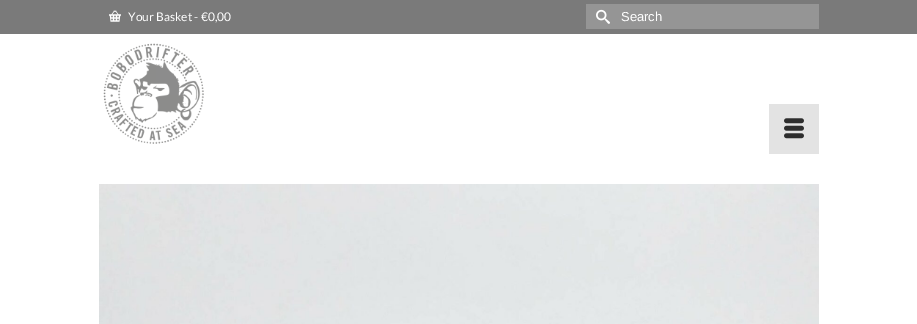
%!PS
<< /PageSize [917 324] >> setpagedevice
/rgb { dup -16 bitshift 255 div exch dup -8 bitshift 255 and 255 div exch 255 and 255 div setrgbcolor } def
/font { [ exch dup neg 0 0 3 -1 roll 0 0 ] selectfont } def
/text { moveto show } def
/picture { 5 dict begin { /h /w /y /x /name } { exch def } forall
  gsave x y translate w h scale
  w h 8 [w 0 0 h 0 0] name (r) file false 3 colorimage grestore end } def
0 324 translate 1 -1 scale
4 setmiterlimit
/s1 { /Lato-Regular 12 font 16#FFFFFF rgb } def
/s2 { /LiberationSans-Regular 13 font 16#FFFFFF rgb } def
16#FFFFFF rgb
0 0 917 324 rectfill
16#7A7A7A rgb
0 0 917 34 rectfill
(pic1.raw) 109 10 12 12 picture
s1
(Your Basket - €0,00) 128 21 text
16#959595 rgb
586 4 233 25 rectfill
(pic2.raw) 596 9 14 15 picture
s2
(Search) 621 21 text
(pic3.raw) 103 43 101 101 picture
16#E3E3E3 rgb
769 104 50 50 rectfill
(pic4.raw) 784 118 20 21 picture
(pic5.raw) 99 184 720 140 picture
showpage
